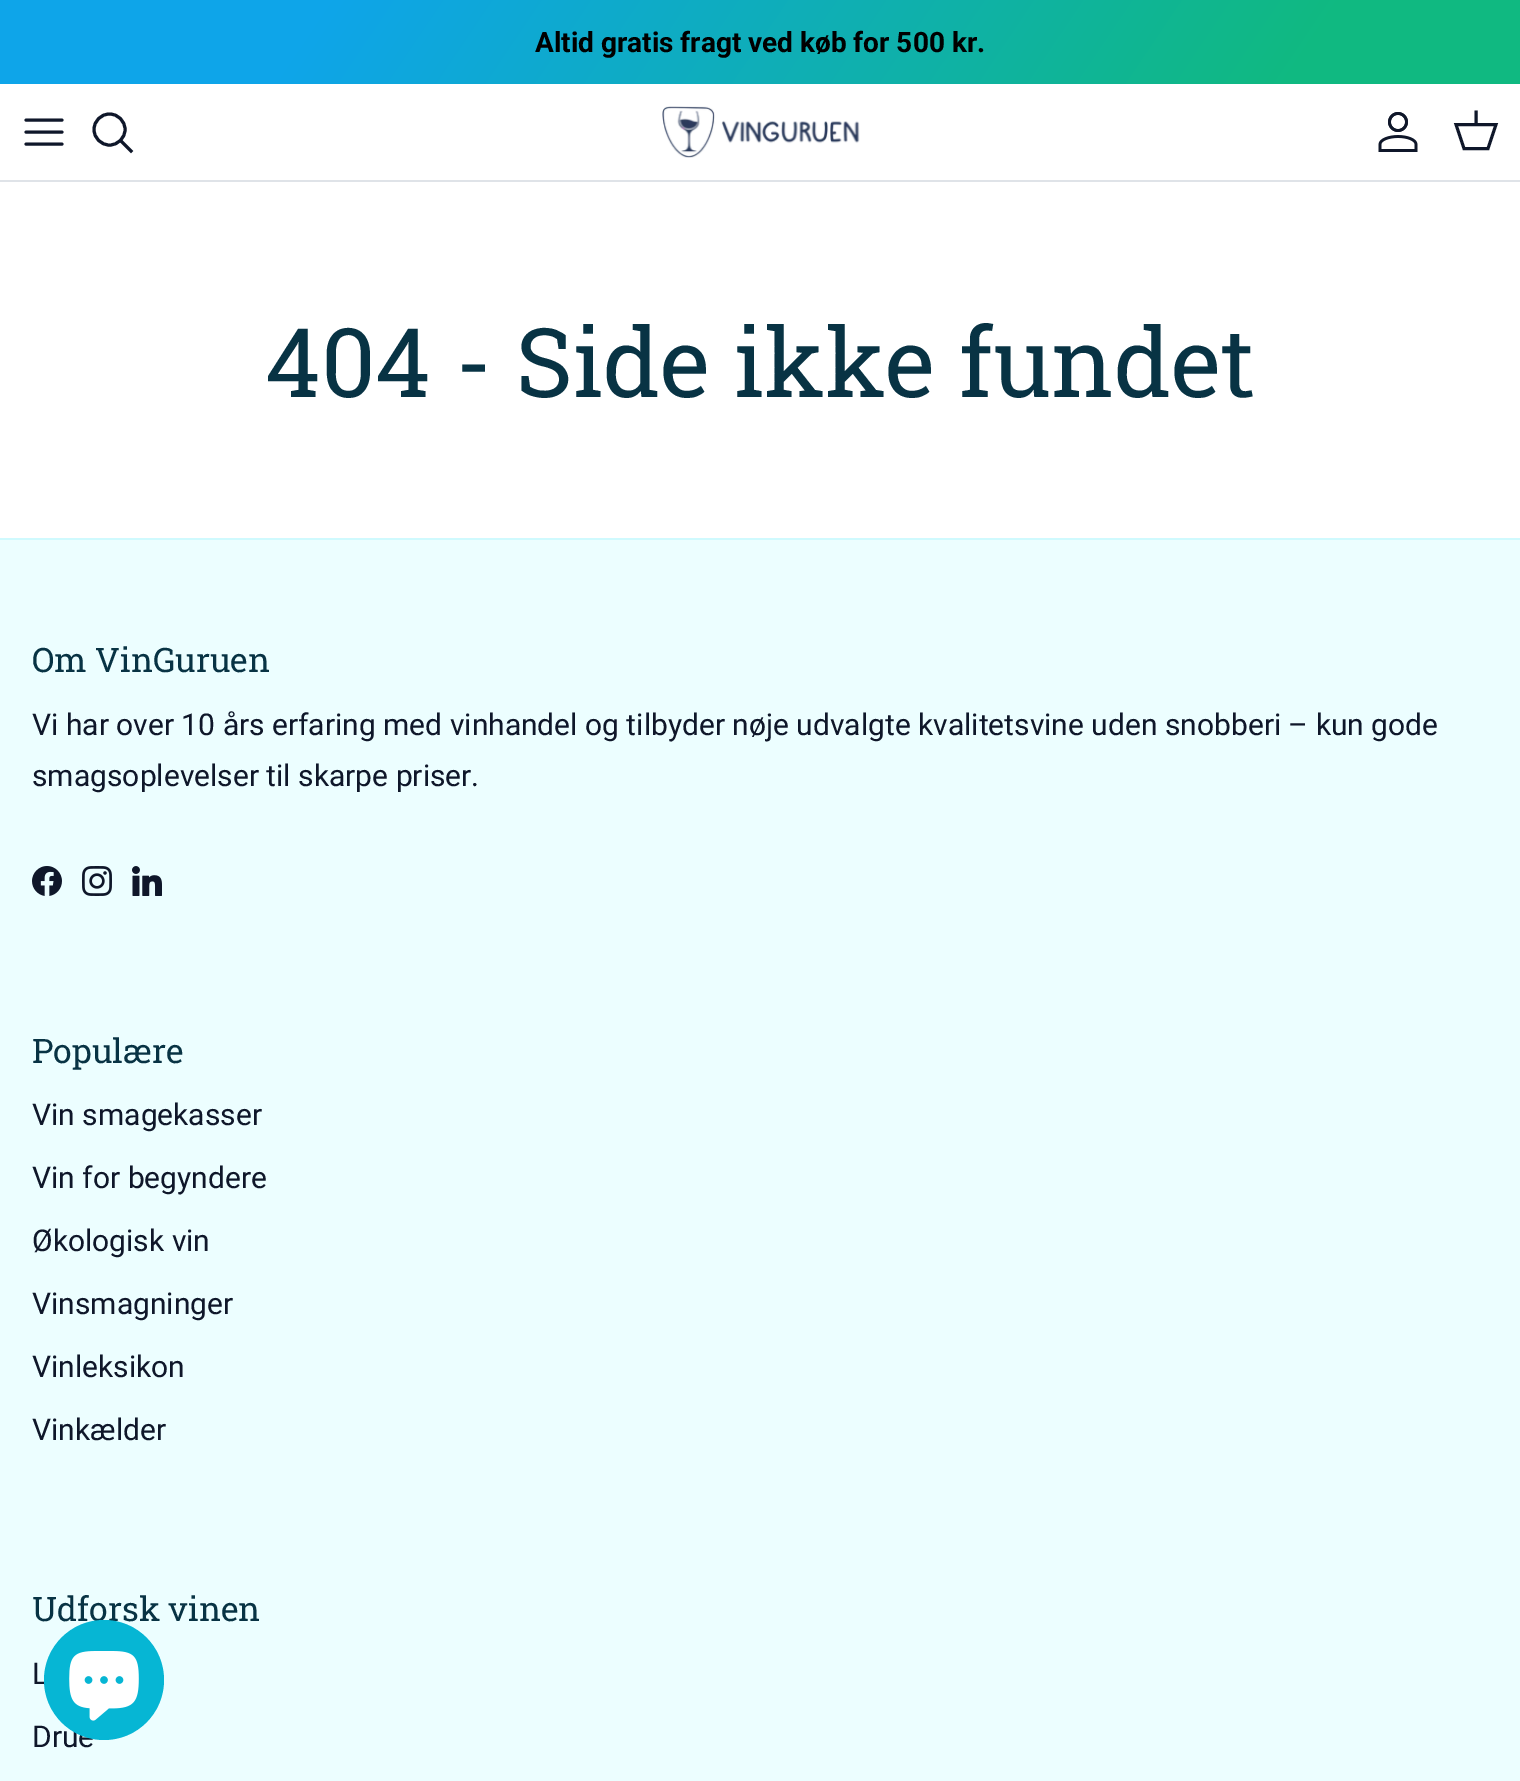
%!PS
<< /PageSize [1520 1781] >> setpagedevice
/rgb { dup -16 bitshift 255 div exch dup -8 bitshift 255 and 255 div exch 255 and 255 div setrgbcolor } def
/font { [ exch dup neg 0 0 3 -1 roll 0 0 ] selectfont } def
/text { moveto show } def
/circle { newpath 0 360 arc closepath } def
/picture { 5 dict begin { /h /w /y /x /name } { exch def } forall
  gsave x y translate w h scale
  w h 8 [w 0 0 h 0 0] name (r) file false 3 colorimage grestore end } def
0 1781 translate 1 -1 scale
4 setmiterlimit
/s1 { /Roboto-Bold 28 font 16#000000 rgb } def
/s2 { /RobotoSlab-Regular 96 font 16#083344 rgb } def
/s3 { /RobotoSlab-Regular 33.75 font 16#083344 rgb } def
/s4 { /Roboto-Regular 30 font 16#0F172A rgb } def
16#FFFFFF rgb
0 0 1520 1781 rectfill
gsave 0 0 moveto 1520 0 lineto 1520 84 lineto 0 84 lineto closepath clip newpath
<< /ShadingType 2 /ColorSpace /DeviceRGB /Coords [218 -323 1302 407] /Extend [true true] /Function << /FunctionType 3 /Domain [0 1] /Functions [<< /FunctionType 2 /Domain [0 1] /C0 [0.055 0.647 0.914] /C1 [0.055 0.647 0.914] /N 1 >> << /FunctionType 2 /Domain [0 1] /C0 [0.055 0.647 0.914] /C1 [0.063 0.725 0.506] /N 1 >> << /FunctionType 2 /Domain [0 1] /C0 [0.063 0.725 0.506] /C1 [0.063 0.725 0.506] /N 1 >>] /Bounds [0.21 0.85] /Encode [0 1 0 1 0 1] >> >> shfill grestore
s1
(Altid gratis fragt ved køb for 500 kr.) 535 52 text
16#DFE3E8 rgb
0 180 1520 2 rectfill
16#0F172A rgb
3 setlinewidth
1 setlinecap
1 setlinejoin
26 132 moveto 62 132 lineto 26 120 moveto 62 120 lineto 26 144 moveto 62 144 lineto stroke
0 setlinecap
0 setlinejoin
109.5 129.5 15.5 circle stroke
2 setlinecap
122 142 moveto 131 151 lineto stroke
(pic1.raw) 662 106 198 52 picture
(pic2.raw) 1378 112 40 40 picture
0 setlinecap
1456 124.5 moveto 1496 124.5 lineto 1488 148.5 lineto 1464 148.5 lineto closepath stroke
2 setlinecap
1476 124 moveto 1476 112 lineto stroke
s2
(404 - Side ikke fundet) 265 397 text
16#ECFEFF rgb
0 540 1520 1241 rectfill
16#CFFAFE rgb
0 538 1520 2 rectfill
s3
(Om VinGuruen) 32 672 text
s4
(Vi har over 10 års erfaring med vinhandel og tilbyder nøje udvalgte kvalitetsvine uden snobberi – kun gode) 32 735 text
(smagsoplevelser til skarpe priser.) 32 786 text
(pic3.raw) 32 866 30 30 picture
(pic4.raw) 82 866 30 30 picture
(pic5.raw) 132 866 30 30 picture
s3
(Populære) 32 1063 text
s4
(Vin smagekasser) 32 1125 text
(Vin for begyndere) 32 1188 text
(Økologisk vin) 32 1251 text
(Vinsmagninger) 32 1314 text
(Vinleksikon) 32 1377 text
(Vinkælder) 32 1440 text
s3
(Udforsk vinen) 32 1621 text
s4
(L) 32 1684 text
(Drue) 32 1747 text
16#06B6D4 rgb
104 1680 60 circle fill
(pic6.raw) 69 1651 70 70 picture
showpage
